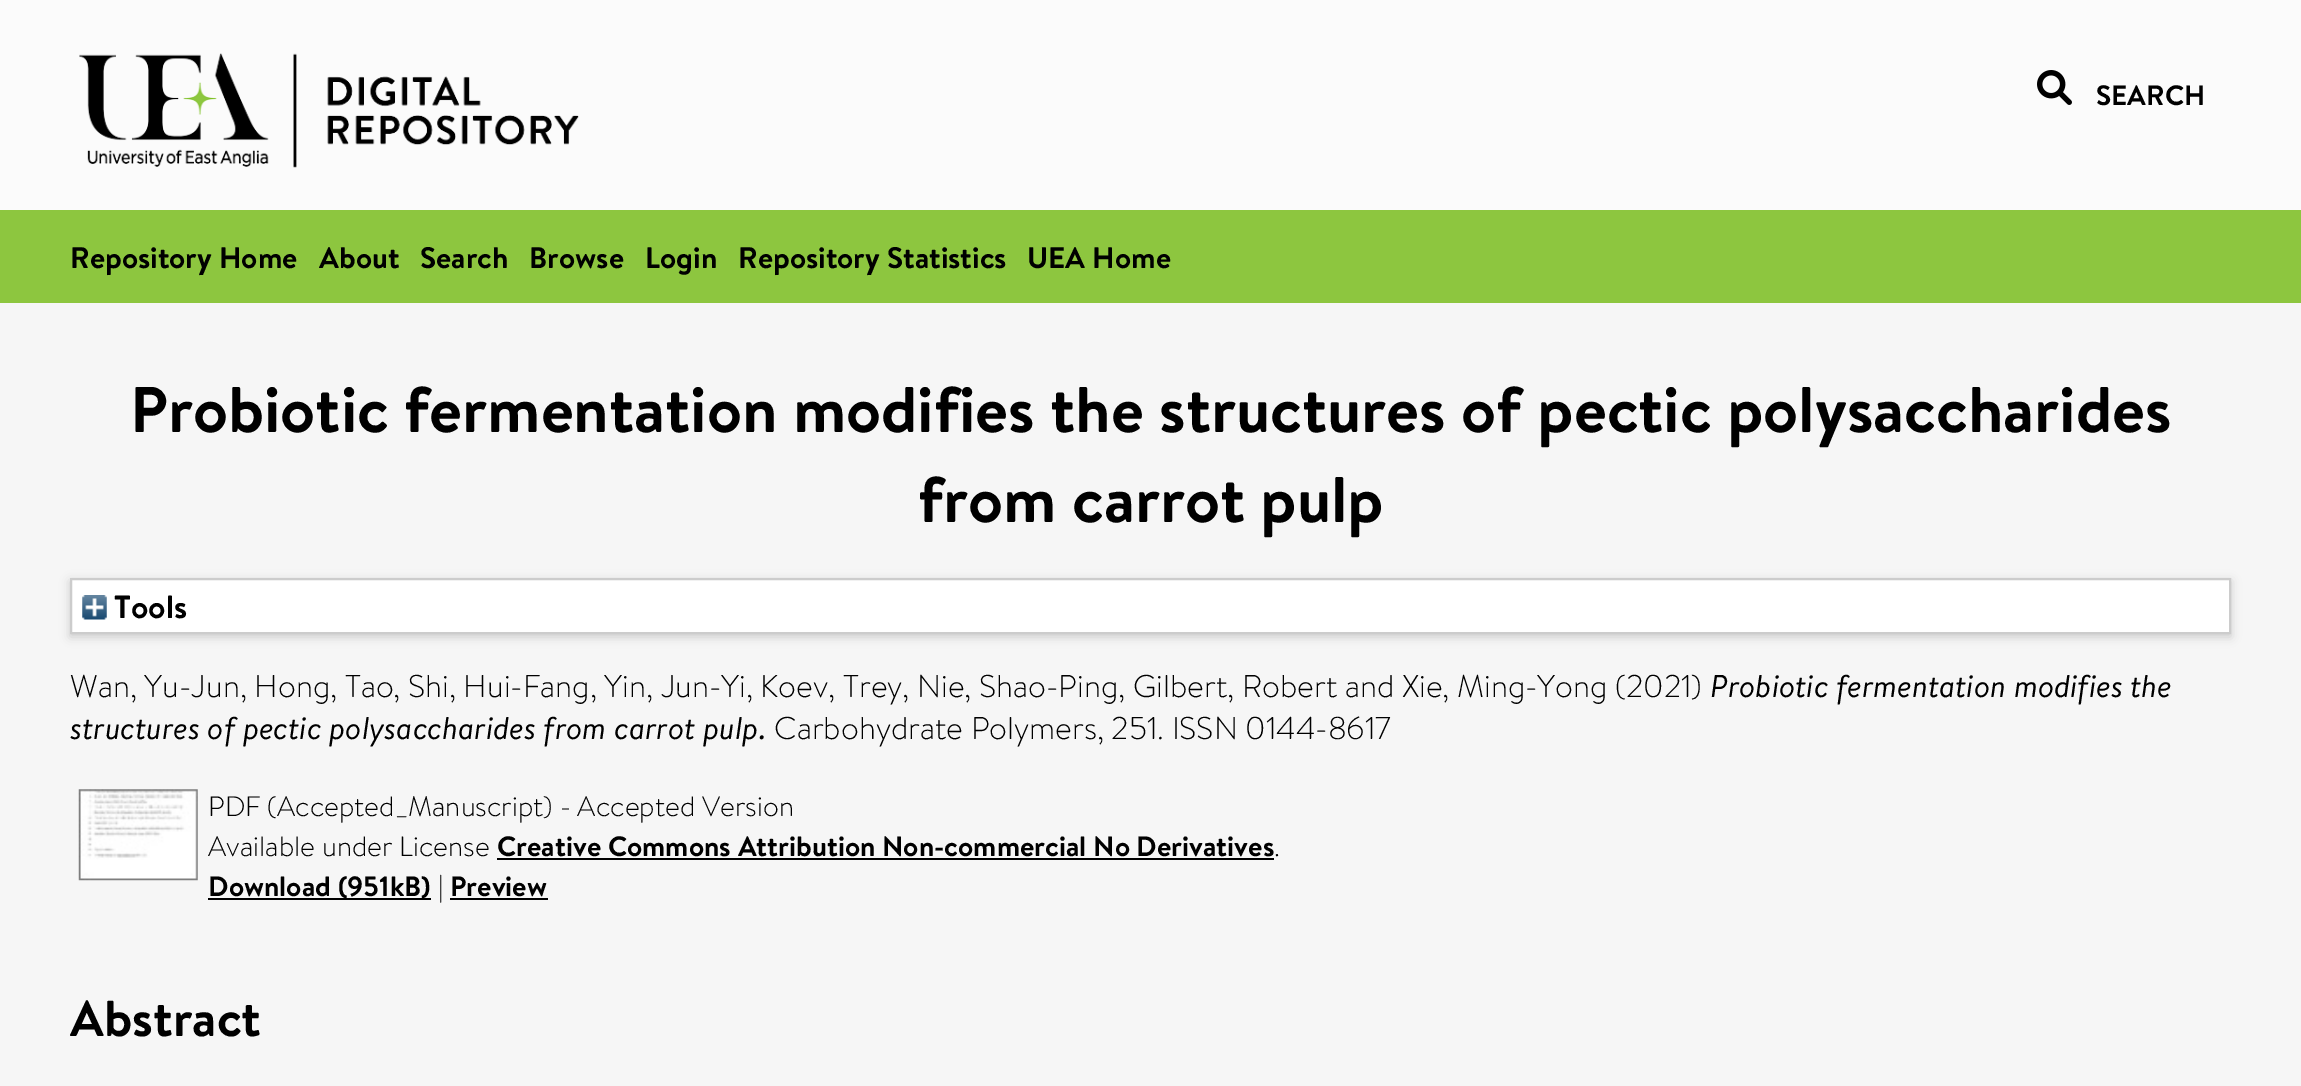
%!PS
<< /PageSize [2301 1086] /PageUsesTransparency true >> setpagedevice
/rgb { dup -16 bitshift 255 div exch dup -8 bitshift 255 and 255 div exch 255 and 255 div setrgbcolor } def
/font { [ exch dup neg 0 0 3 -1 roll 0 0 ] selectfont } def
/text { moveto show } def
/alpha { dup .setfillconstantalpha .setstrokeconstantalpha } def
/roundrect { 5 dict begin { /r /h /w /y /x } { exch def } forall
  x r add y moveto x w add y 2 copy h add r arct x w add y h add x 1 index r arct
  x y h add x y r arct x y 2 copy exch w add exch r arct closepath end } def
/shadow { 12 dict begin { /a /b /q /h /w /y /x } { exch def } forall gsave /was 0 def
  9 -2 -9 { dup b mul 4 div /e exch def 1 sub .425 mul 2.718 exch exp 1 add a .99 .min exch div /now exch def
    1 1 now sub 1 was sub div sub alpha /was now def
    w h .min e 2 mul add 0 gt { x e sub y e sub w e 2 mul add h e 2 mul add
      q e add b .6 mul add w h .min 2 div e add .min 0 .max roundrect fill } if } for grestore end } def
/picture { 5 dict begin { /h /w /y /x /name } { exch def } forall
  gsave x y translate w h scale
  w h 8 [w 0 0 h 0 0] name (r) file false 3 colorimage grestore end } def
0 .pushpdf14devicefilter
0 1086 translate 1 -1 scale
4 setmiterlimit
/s1 { /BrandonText-Bold 28 font 16#000000 rgb } def
/s2 { /BrandonText-Bold 29.75 font 16#000000 rgb } def
/s3 { /BrandonText-Bold 64.4 font 16#000000 rgb } def
/s4 { /BrandonText-Bold 32 font 16#000000 rgb } def
/s5 { /BrandonText-Light 31.5 font 16#000000 rgb } def
/s6 { /BrandonText-Italic 31.5 font 16#000000 rgb } def
/s7 { /BrandonText-Light 28 font 16#000000 rgb } def
/s8 { /BrandonText-Bold 50.5 font 16#000000 rgb } def
16#F6F6F6 rgb
0 0 2301 1086 rectfill
16#FBFBFB rgb
0 0 2301 210 rectfill
(pic1.raw) 79 53 500 115 picture
(pic2.raw) 2037 70 35 35 picture
s1
(SEARCH) 2096 105 text
16#8DC63F rgb
0 210 2301 93 rectfill
s2
(Repository Home) 70 268 text
(About) 319 268 text
(Search) 420 268 text
(Browse) 529 268 text
(Login) 645 268 text
(Repository Statistics) 738 268 text
(UEA Home) 1027 268 text
s3
(Probiotic fermentation modifies the structures of pectic polysaccharides) 130 432 text
(from carrot pulp) 918 522 text
16#646464 rgb
70 581 2161 56 0 5 0.3 shadow
16#FFFFFF rgb
71 579 moveto 2230 579 lineto 2230 633 lineto 71 633 lineto closepath gsave fill grestore
16#CCCCCC rgb
2 setlinewidth
stroke
(pic3.raw) 82 595 25 25 picture
s4
(Tools) 114 618 text
s5
(Wan, Yu-Jun, Hong, Tao, Shi, Hui-Fang, Yin, Jun-Yi, Koev, Trey, Nie, Shao-Ping, Gilbert, Robert and Xie, Ming-Yong \(2021\)) 70 697 text
s6
(Probiotic fermentation modifies the) 1710 697 text
(structures of pectic polysaccharides from carrot pulp.) 70 739 text
s5
(Carbohydrate Polymers, 251. ISSN 0144-8617) 774 739 text
(pic4.raw) 78 789 120 92 picture
s7
(PDF \(Accepted_Manuscript\) - Accepted Version) 208 816 text
(Available under License) 208 856 text
s1
(Creative Commons Attribution Non-commercial No Derivatives) 497 856 text
s7
(.) 1274 856 text
497 858 777 2 rectfill
208 898 223 2 rectfill
s1
(Download \(951kB\)) 208 896 text
s7
(|) 438 896 text
s1
(Preview) 450 896 text
450 898 98 2 rectfill
s8
(Abstract) 70 1036 text
.poppdf14devicefilter showpage
